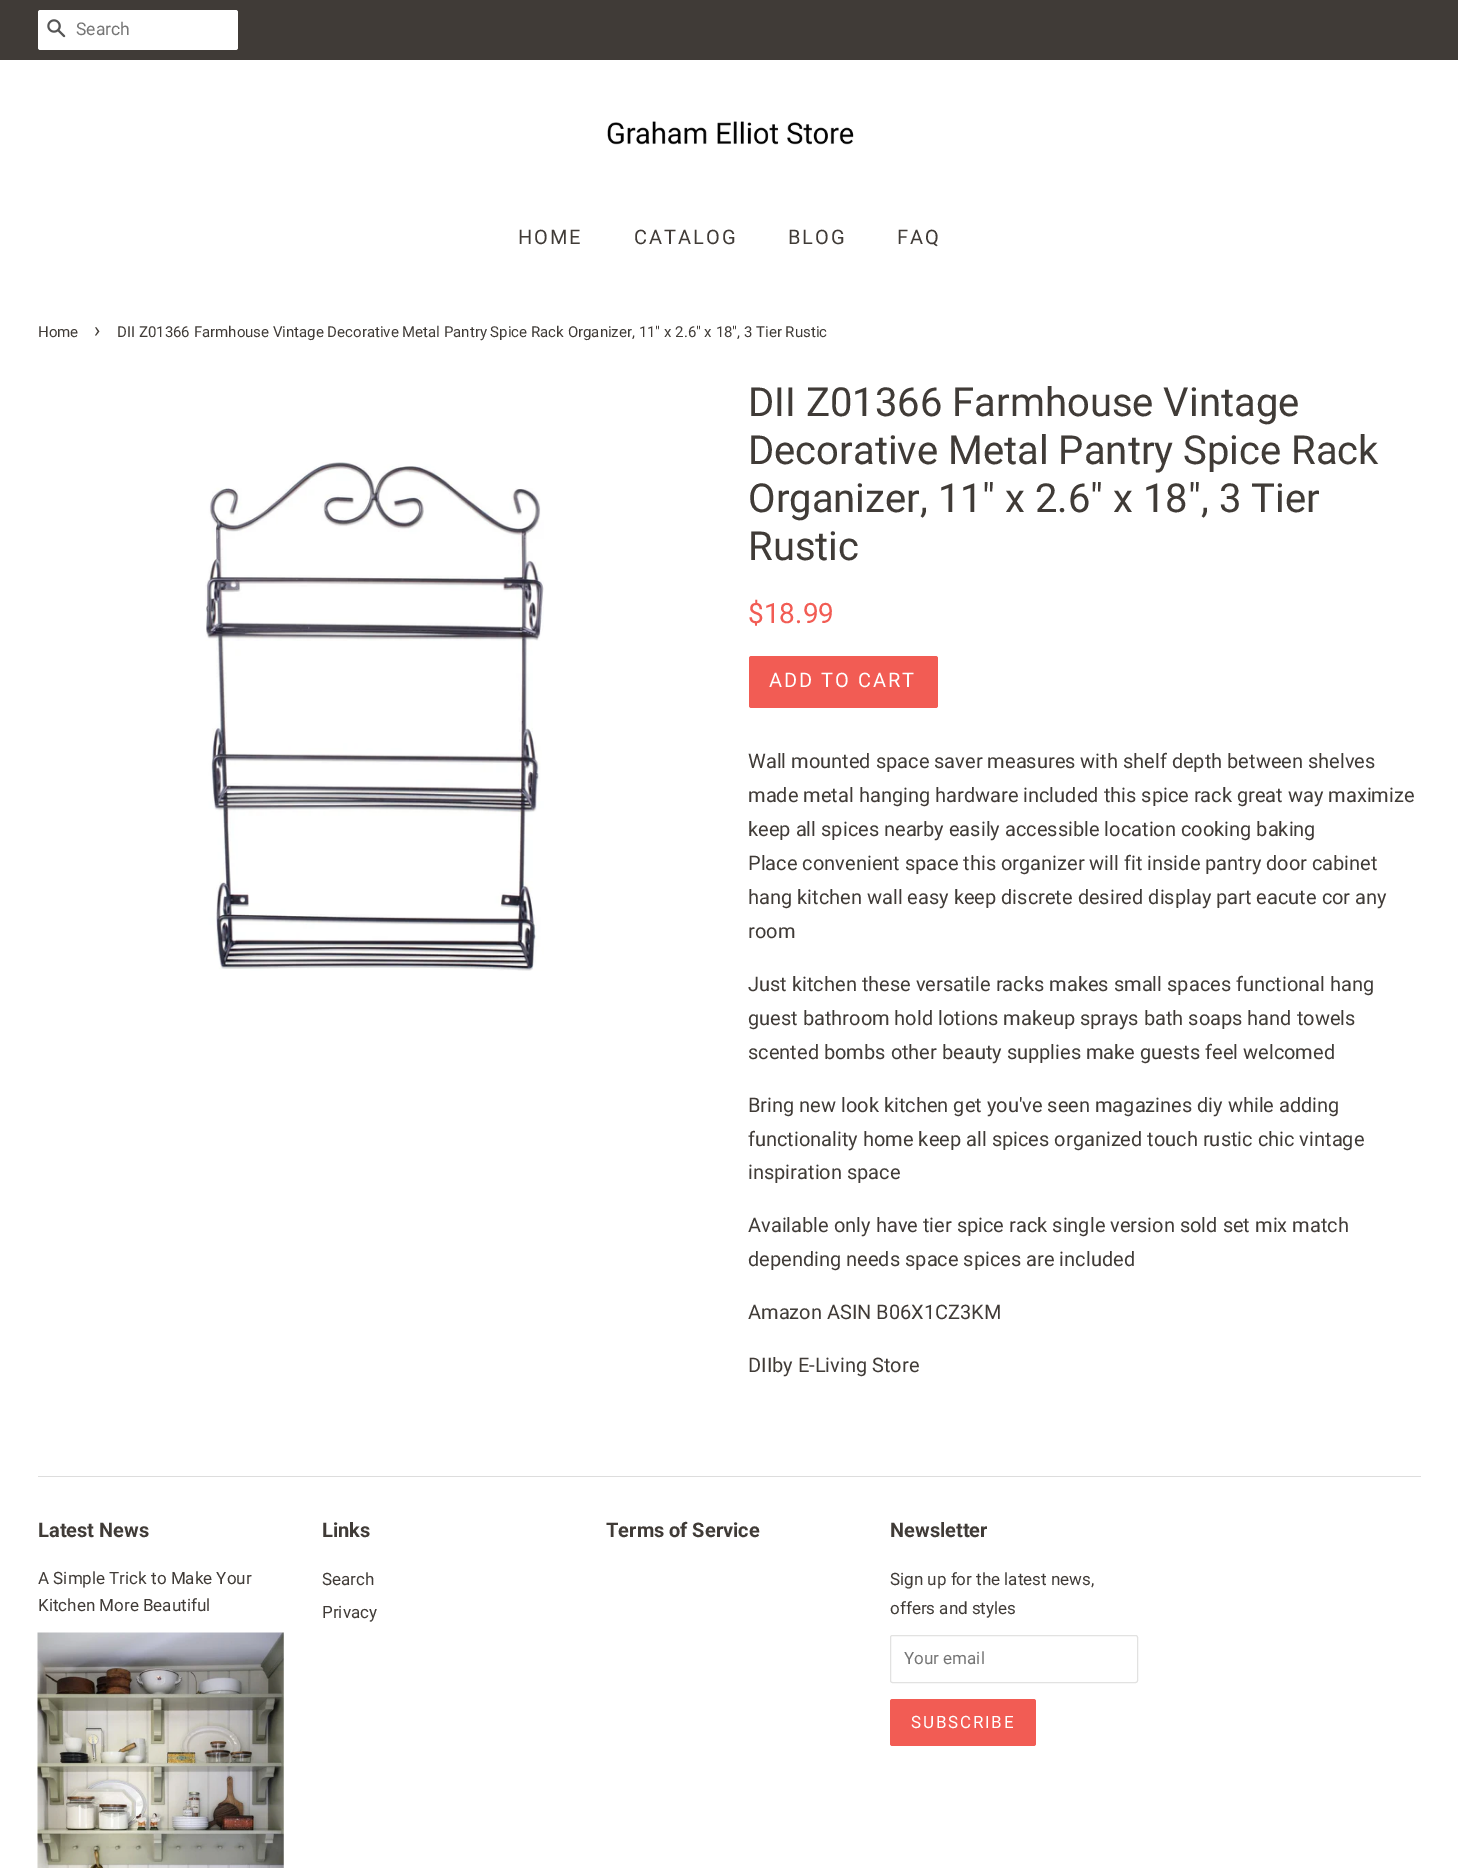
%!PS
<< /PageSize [1458 1868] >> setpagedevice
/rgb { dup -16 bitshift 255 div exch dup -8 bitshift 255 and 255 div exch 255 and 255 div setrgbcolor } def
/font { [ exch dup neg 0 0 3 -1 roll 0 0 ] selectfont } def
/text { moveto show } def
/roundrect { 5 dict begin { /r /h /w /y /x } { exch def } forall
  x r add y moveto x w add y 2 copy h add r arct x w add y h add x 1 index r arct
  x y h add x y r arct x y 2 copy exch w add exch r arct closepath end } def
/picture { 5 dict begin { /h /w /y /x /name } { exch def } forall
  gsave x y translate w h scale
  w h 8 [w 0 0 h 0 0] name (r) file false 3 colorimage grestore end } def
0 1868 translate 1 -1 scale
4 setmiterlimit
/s1 { /Roboto-Regular 17.5 font 16#757575 rgb } def
/s2 { /Roboto-Regular 15 font 16#403B37 rgb } def
/s3 { /Roboto-Regular 21 font 16#403B37 rgb } def
/s4 { /Roboto-Regular 40 font 16#403B37 rgb } def
/s5 { /Roboto-Regular 28 font 16#F25C54 rgb } def
/s6 { /Roboto-Regular 20 font 16#403B37 rgb } def
/s7 { /Roboto-Bold 20 font 16#403B37 rgb } def
/s8 { /Roboto-Regular 17 font 16#403B37 rgb } def
/s9 { /Roboto-Regular 17 font 16#757575 rgb } def
16#FFFFFF rgb
0 0 1458 1868 rectfill
16#403B37 rgb
0 0 1458 60 rectfill
16#FFFFFF rgb
38 10 200 40 2.5 roundrect fill
(pic1.raw) 47 19 19 19 picture
s1
(Search) 76 35 text
(pic2.raw) 607 121 247 24 picture
/Roboto-Regular 20 font
16#403B37 rgb
518 244 moveto 2 0 (HOME) ashow
634 244 moveto 2 0 (CATALOG) ashow
788 244 moveto 2 0 (BLOG) ashow
897 244 moveto 2 0 (FAQ) ashow
s2
(Home) 38 337 text
s3
(›) 94 337 text
s2
(DII Z01366 Farmhouse Vintage Decorative Metal Pantry Spice Rack Organizer, 11" x 2.6" x 18", 3 Tier Rustic) 117 337 text
(pic3.raw) 205 462 339 509 picture
s4
(DII Z01366 Farmhouse Vintage) 748 416 text
(Decorative Metal Pantry Spice Rack) 748 464 text
(Organizer, 11" x 2.6" x 18", 3 Tier) 748 512 text
(Rustic) 748 560 text
s5
($18.99) 748 623 text
749 656 189 52 2.5 roundrect fill
/Roboto-Regular 20 font
16#FFFFFF rgb
769 687 moveto 2 0 (ADD TO CART) ashow
s6
(Wall mounted space saver measures with shelf depth between shelves) 748 768 text
(made metal hanging hardware included this spice rack great way maximize) 748 802 text
(keep all spices nearby easily accessible location cooking baking) 748 836 text
(Place convenient space this organizer will fit inside pantry door cabinet) 748 870 text
(hang kitchen wall easy keep discrete desired display part eacute cor any) 748 904 text
(room) 748 938 text
(Just kitchen these versatile racks makes small spaces functional hang) 748 991 text
(guest bathroom hold lotions makeup sprays bath soaps hand towels) 748 1025 text
(scented bombs other beauty supplies make guests feel welcomed) 748 1059 text
(Bring new look kitchen get you've seen magazines diy while adding) 748 1112 text
(functionality home keep all spices organized touch rustic chic vintage) 748 1146 text
(inspiration space) 748 1179 text
(Available only have tier spice rack single version sold set mix match) 748 1232 text
(depending needs space spices are included) 748 1266 text
(Amazon ASIN B06X1CZ3KM) 748 1319 text
(DIIby E-Living Store) 748 1372 text
16#DDDDDD rgb
38 1476 1383 1 rectfill
s7
(Latest News) 38 1537 text
s8
(A Simple Trick to Make Your) 38 1584 text
(Kitchen More Beautiful) 38 1611 text
(pic4.raw) 37 1632 247 236 picture
s7
(Links) 322 1537 text
s8
(Search) 322 1585 text
(Privacy) 322 1618 text
s7
(Terms of Service) 606 1537 text
(Newsletter) 890 1537 text
s8
(Sign up for the latest news,) 890 1585 text
(offers and styles) 890 1614 text
16#E2E2E1 rgb
890.5 1635.5 247 47 2 roundrect stroke
s9
(Your email) 904 1664 text
16#F25C54 rgb
890 1699 146 47 2.5 roundrect fill
16#FFFFFF rgb
911 1728 moveto 1.75 0 (SUBSCRIBE) ashow
showpage
